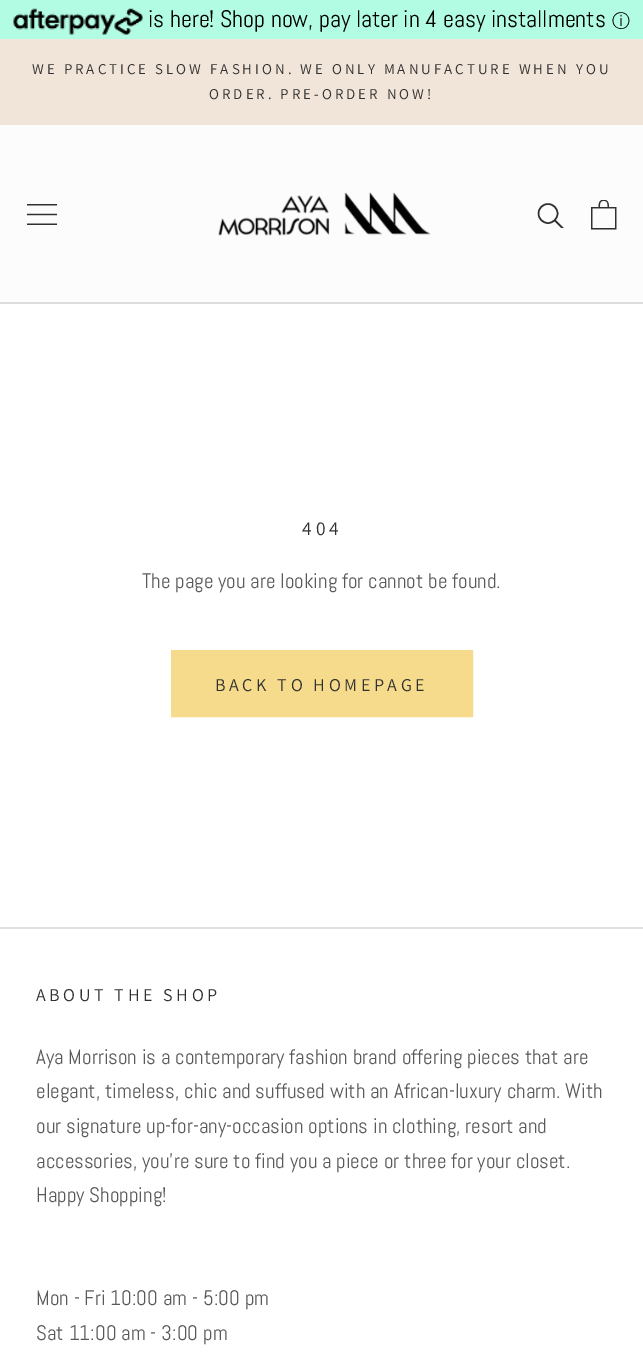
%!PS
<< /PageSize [643 1360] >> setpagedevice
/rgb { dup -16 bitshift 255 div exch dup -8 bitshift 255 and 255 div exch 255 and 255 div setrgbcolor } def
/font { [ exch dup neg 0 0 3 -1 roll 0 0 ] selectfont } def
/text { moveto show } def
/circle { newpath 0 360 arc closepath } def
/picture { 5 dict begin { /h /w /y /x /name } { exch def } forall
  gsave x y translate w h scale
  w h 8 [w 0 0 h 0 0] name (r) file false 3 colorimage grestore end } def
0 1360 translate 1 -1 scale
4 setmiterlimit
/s1 { /Abel-Regular 24 font 16#000000 rgb } def
/s2 { /WenQuanYiZenHei-Medium 18 font 16#000000 rgb } def
/s3 { /Abel-Regular 21 font 16#595959 rgb } def
16#FFFFFF rgb
0 0 643 1360 rectfill
16#B2FCE4 rgb
0 0 643 39 rectfill
(pic1.raw) 13 8 130 27 picture
s1
(is here! Shop now, pay later in 4 easy installments) 148 27 text
s2
(ⓘ) 612 27 text
16#F1E4D8 rgb
0 39 643 86 rectfill
/Assistant-Regular 15 font
16#303030 rgb
32 74 moveto 3 0 (WE PRACTICE SLOW FASHION. WE ONLY MANUFACTURE WHEN YOU) ashow
209 99 moveto 3 0 (ORDER. PRE-ORDER NOW!) ashow
16#FCFCFC rgb
0 125 643 177 rectfill
16#DDDDDD rgb
0 302 643 2 rectfill
(pic2.raw) 27 204 30 21 picture
(pic3.raw) 218 192 213 44 picture
gsave
537 203 27 25 rectclip
16#303030 rgb
1.5 setlinewidth
2 setlinecap
562.5 228 moveto 555 220.5 lineto stroke
grestore
16#303030 rgb
1.5 setlinewidth
548 213.5 9.5 circle stroke
(pic4.raw) 591 200 26 30 picture
/Assistant-Regular 19.5 font
302 535 moveto 4 0 (404) ashow
s3
(The page you are looking for cannot be found.) 142 588 text
16#F5DB8B rgb
2 setlinewidth
172 651 300 65 rectstroke
173 652 298 63 rectfill
/Assistant-Regular 18 font
16#303030 rgb
215 691 moveto 3.6 0 (BACK TO HOMEPAGE) ashow
16#E0E0E0 rgb
0 927 643 2 rectfill
16#303030 rgb
36 1001 moveto 3.6 0 (ABOUT THE SHOP) ashow
s3
(Aya Morrison is a contemporary fashion brand offering pieces that are) 36 1064 text
(elegant, timeless, chic and suffused with an African-luxury charm. With) 36 1098 text
(our signature up-for-any-occasion options in clothing, resort and) 36 1133 text
(accessories, you’re sure to find you a piece or three for your closet.) 36 1168 text
(Happy Shopping!) 36 1202 text
(Mon - Fri 10:00 am - 5:00 pm) 36 1305 text
(Sat 11:00 am - 3:00 pm) 36 1340 text
showpage
